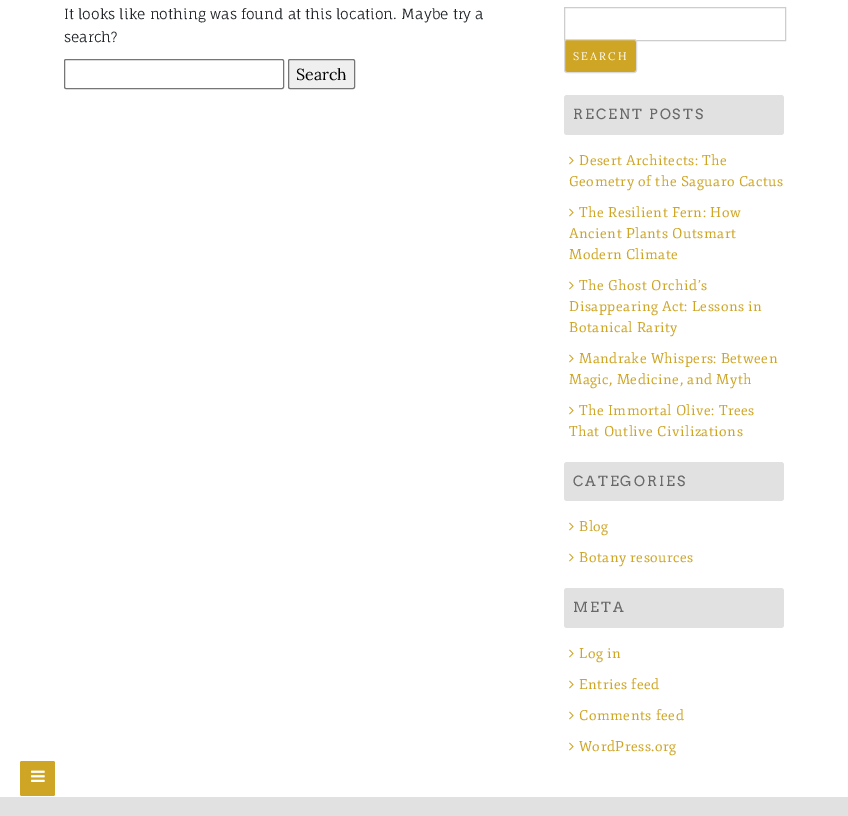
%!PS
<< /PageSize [848 816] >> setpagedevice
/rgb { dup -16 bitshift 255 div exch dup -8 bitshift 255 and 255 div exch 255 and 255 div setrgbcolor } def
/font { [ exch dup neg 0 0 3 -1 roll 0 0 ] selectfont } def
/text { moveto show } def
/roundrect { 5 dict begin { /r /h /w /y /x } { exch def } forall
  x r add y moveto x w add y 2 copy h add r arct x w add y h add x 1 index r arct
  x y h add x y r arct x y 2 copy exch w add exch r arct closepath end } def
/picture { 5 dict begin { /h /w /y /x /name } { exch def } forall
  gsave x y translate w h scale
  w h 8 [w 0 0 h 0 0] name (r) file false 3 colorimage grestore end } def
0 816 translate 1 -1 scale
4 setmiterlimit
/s1 { /FaunaOne-Regular 14 font 16#212529 rgb } def
/s2 { /Lora-Regular 16 font 16#000000 rgb } def
16#FFFFFF rgb
0 0 848 816 rectfill
s1
(It looks like nothing was found at this location. Maybe try a) 64 19 text
(search?) 64 42 text
16#767676 rgb
64.5 59.5 219 29 1.5 roundrect stroke
16#EFEFEF rgb
288.5 59.5 66 29 1.5 roundrect gsave fill grestore
16#767676 rgb
stroke
s2
(Search) 296 80 text
16#CDCDCD rgb
564.5 7.5 221 33 rectstroke
16#CEA525 rgb
564.5 39.5 72 33 2.5 roundrect gsave fill grestore
16#DADADA rgb
stroke
/Lora-Regular 11 font
16#FFFFFF rgb
573 60 moveto 2 0 (SEARCH) ashow
16#E1E1E1 rgb
564 95 220 40 3 roundrect fill
/Arvo-Regular 14 font
16#696969 rgb
573 119 moveto 2 0 (RECENT POSTS) ashow
(pic1.raw) 569 156 5 9 picture
/Fjord-Regular 14 font
16#CEA525 rgb
579 165 moveto 0.5 0 (Desert Architects: The) ashow
569 186 moveto 0.5 0 (Geometry of the Saguaro Cactus) ashow
(pic1.raw) 569 208 5 9 picture
579 217 moveto 0.5 0 (The Resilient Fern: How) ashow
569 238 moveto 0.5 0 (Ancient Plants Outsmart) ashow
569 259 moveto 0.5 0 (Modern Climate) ashow
(pic1.raw) 569 281 5 9 picture
579 290 moveto 0.5 0 (The Ghost Orchid’s) ashow
569 311 moveto 0.5 0 (Disappearing Act: Lessons in) ashow
569 332 moveto 0.5 0 (Botanical Rarity) ashow
(pic1.raw) 569 354 5 9 picture
579 363 moveto 0.5 0 (Mandrake Whispers: Between) ashow
569 384 moveto 0.5 0 (Magic, Medicine, and Myth) ashow
(pic1.raw) 569 406 5 9 picture
579 415 moveto 0.5 0 (The Immortal Olive: Trees) ashow
569 436 moveto 0.5 0 (That Outlive Civilizations) ashow
16#E1E1E1 rgb
564 462 220 39 3 roundrect fill
/Arvo-Regular 14 font
16#696969 rgb
573 486 moveto 2 0 (CATEGORIES) ashow
(pic1.raw) 569 522 5 9 picture
/Fjord-Regular 14 font
16#CEA525 rgb
579 531 moveto 0.5 0 (Blog) ashow
(pic1.raw) 569 553 5 9 picture
579 562 moveto 0.5 0 (Botany resources) ashow
16#E1E1E1 rgb
564 588 220 40 3 roundrect fill
/Arvo-Regular 14 font
16#696969 rgb
573 612 moveto 2 0 (META) ashow
(pic1.raw) 569 649 5 9 picture
/Fjord-Regular 14 font
16#CEA525 rgb
579 658 moveto 0.5 0 (Log in) ashow
(pic1.raw) 569 680 5 9 picture
579 689 moveto 0.5 0 (Entries feed) ashow
(pic1.raw) 569 711 5 9 picture
579 720 moveto 0.5 0 (Comments feed) ashow
(pic1.raw) 569 742 5 9 picture
579 751 moveto 0.5 0 (WordPress.org) ashow
20 761 35 35 2 roundrect fill
(pic2.raw) 31 770 14 12 picture
16#E1E1E1 rgb
0 797 848 19 rectfill
showpage
